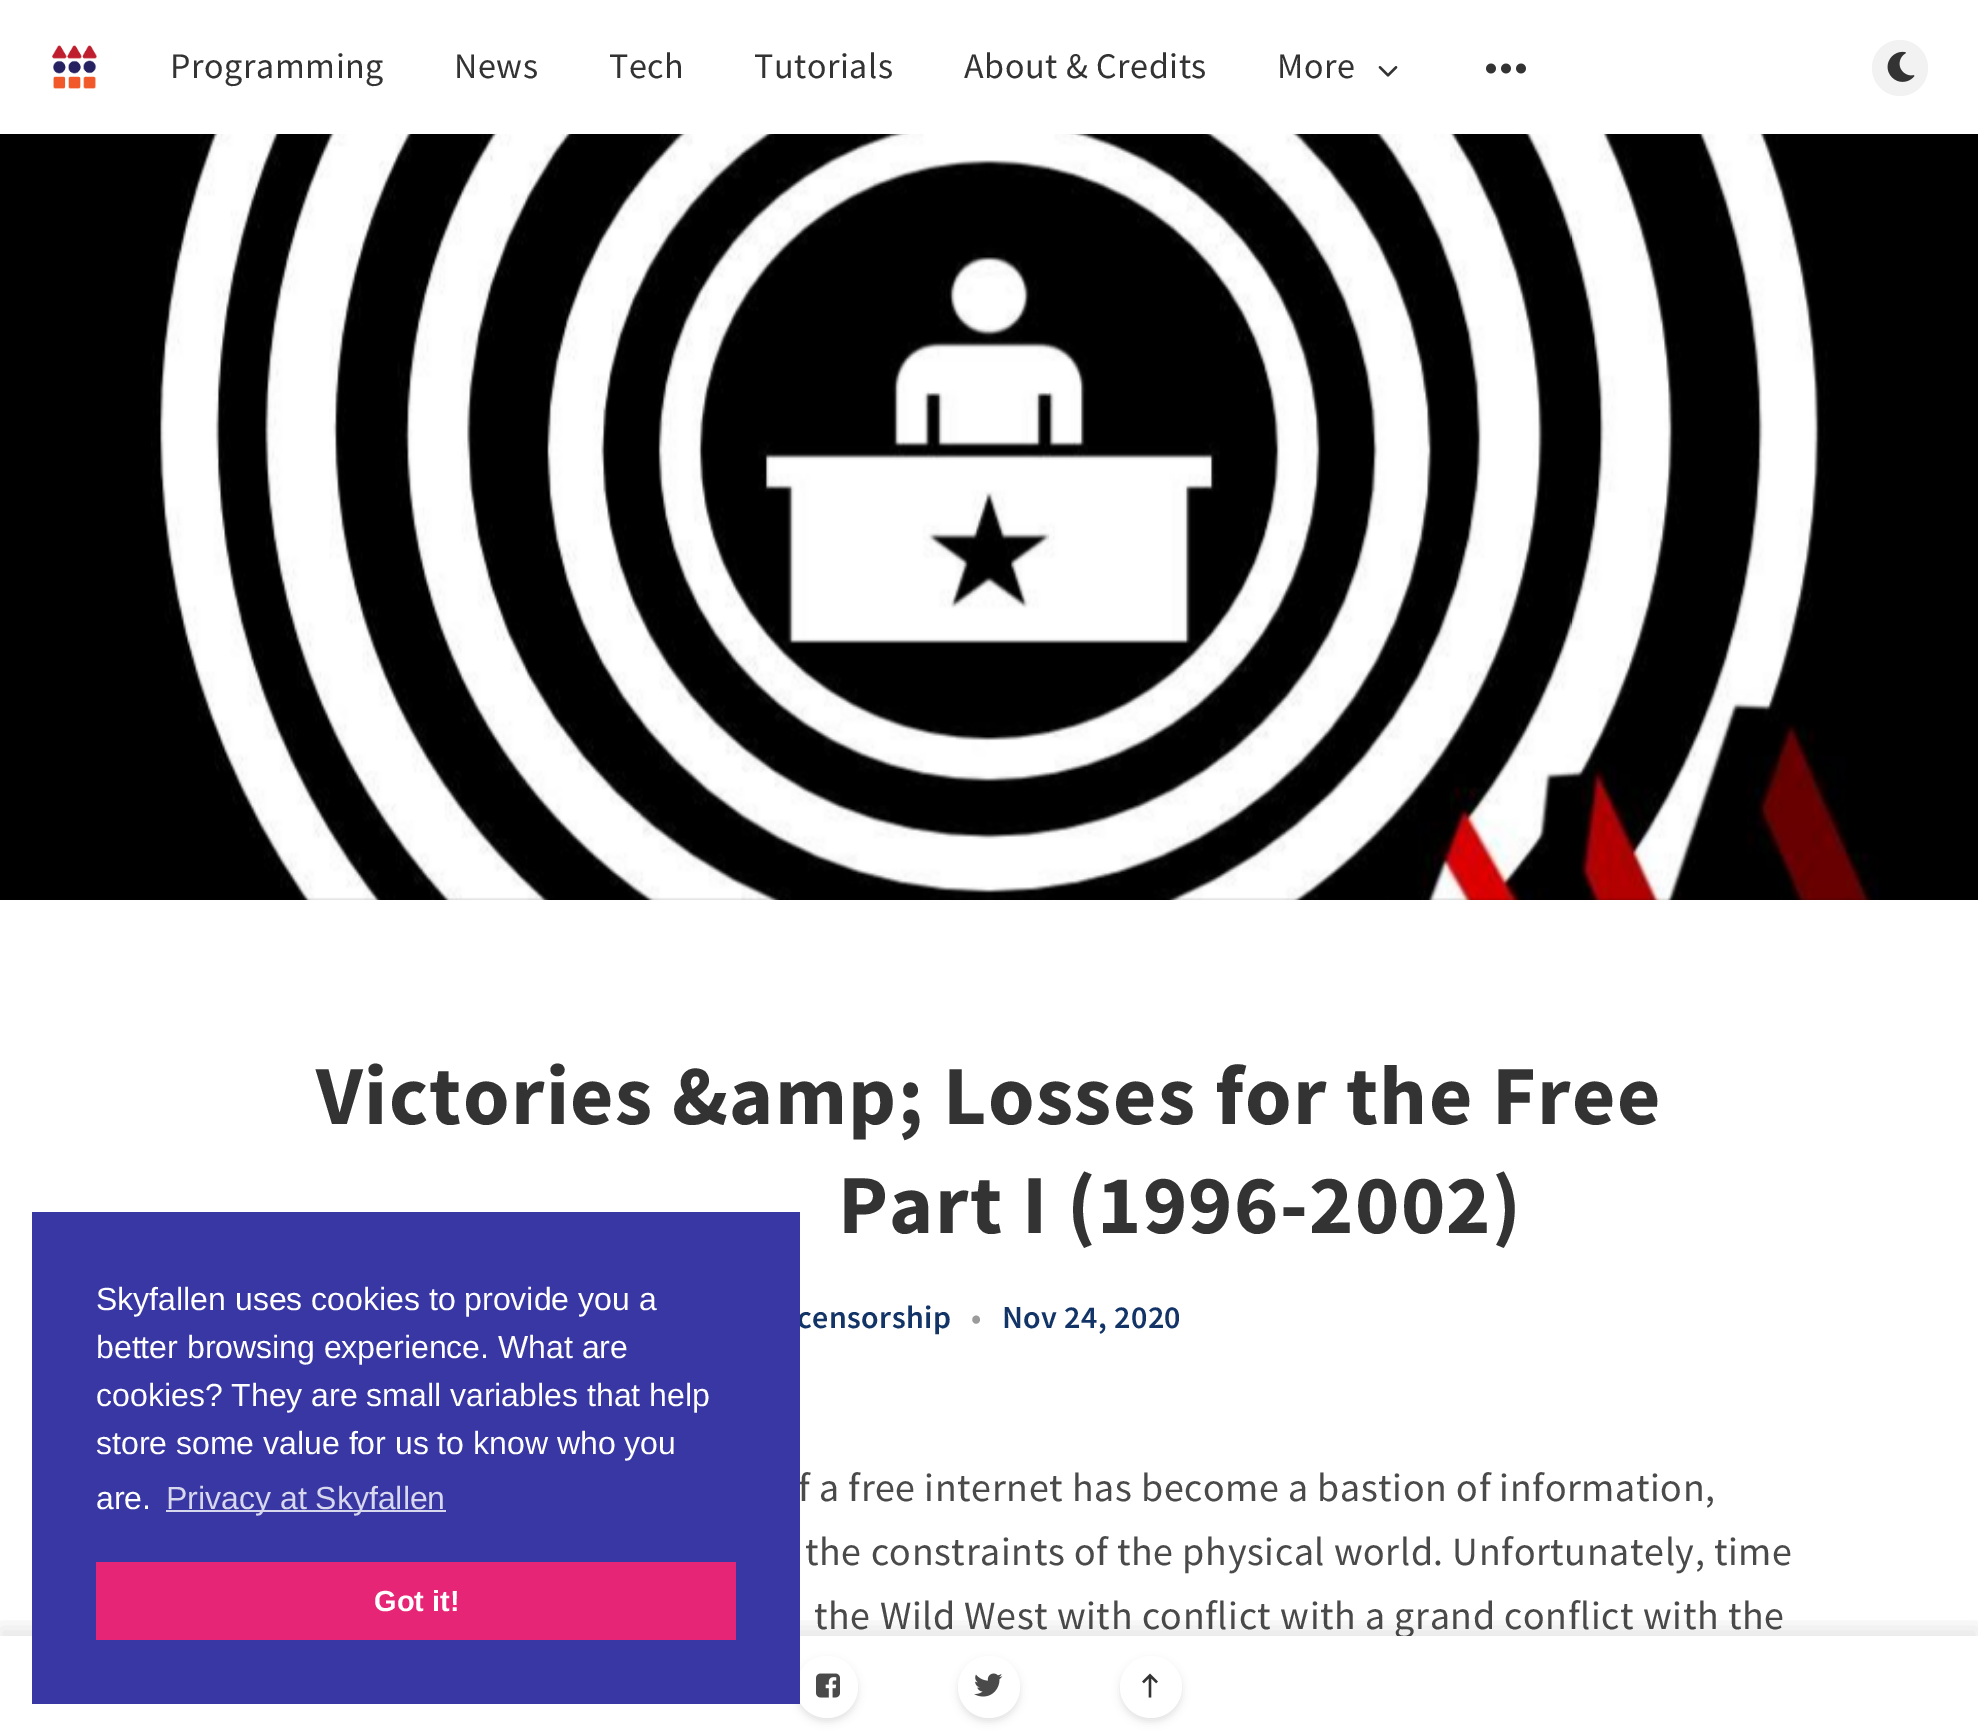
%!PS
<< /PageSize [1978 1736] /PageUsesTransparency true >> setpagedevice
/rgb { dup -16 bitshift 255 div exch dup -8 bitshift 255 and 255 div exch 255 and 255 div setrgbcolor } def
/font { [ exch dup neg 0 0 3 -1 roll 0 0 ] selectfont } def
/text { moveto show } def
/alpha { dup .setfillconstantalpha .setstrokeconstantalpha } def
/circle { newpath 0 360 arc closepath } def
/roundrect { 5 dict begin { /r /h /w /y /x } { exch def } forall
  x r add y moveto x w add y 2 copy h add r arct x w add y h add x 1 index r arct
  x y h add x y r arct x y 2 copy exch w add exch r arct closepath end } def
/shadow { 12 dict begin { /a /b /q /h /w /y /x } { exch def } forall gsave /was 0 def
  9 -2 -9 { dup b mul 4 div /e exch def 1 sub .425 mul 2.718 exch exp 1 add a .99 .min exch div /now exch def
    1 1 now sub 1 was sub div sub alpha /was now def
    w h .min e 2 mul add 0 gt { x e sub y e sub w e 2 mul add h e 2 mul add
      q e add b .6 mul add w h .min 2 div e add .min 0 .max roundrect fill } if } for grestore end } def
/picture { 5 dict begin { /h /w /y /x /name } { exch def } forall
  gsave x y translate w h scale
  w h 8 [w 0 0 h 0 0] name (r) file false 3 colorimage grestore end } def
0 .pushpdf14devicefilter
0 1736 translate 1 -1 scale
4 setmiterlimit
/s1 { /LiberationSans-Regular 32 font 16#FFFFFF rgb } def
/s2 { /LiberationSans-Regular 32 font 16#D7D7ED rgb } def
/s3 { /LiberationSans-Bold 29 font 16#FFFFFF rgb } def
16#FFFFFF rgb
0 0 1978 1736 rectfill
(pic1.raw) 52 45 45 44 picture
/SourceSansPro-Regular 36 font
16#333333 rgb
170 78 moveto 0.6 0 (Programming) ashow
454 78 moveto 0.6 0 (News) ashow
609 78 moveto 0.6 0 (Tech) ashow
754 78 moveto 0.6 0 (Tutorials) ashow
964 78 moveto 0.6 0 (About & Credits) ashow
1277 78 moveto 0.6 0 (More) ashow
(pic2.raw) 1378 66 20 11 picture
(pic3.raw) 1486 63 40 11 picture
16#F2F2F2 rgb
1900 68 28 circle fill
(pic4.raw) 1887 51 28 31 picture
16#000000 rgb
0 134 1978 766 rectfill
(pic5.raw) 151 134 1728 766 picture
/SourceSansPro-Bold 84 font
16#333333 rgb
316 1124 moveto 1.4 0 (Victories &amp; Losses for the Free) ashow
838 1233 moveto 1.4 0 (Part I \(1996-2002\)) ashow
/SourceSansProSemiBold-SemiBold 32 font
16#133467 rgb
797 1328 moveto 0.4 0 (censorship) ashow
16#9B9B9B rgb
971 1328 moveto 0.4 0 (•) ashow
16#133467 rgb
1002 1328 moveto 0.4 0 (Nov 24, 2020) ashow
/SourceSansPro-Regular 40 font
16#4A4A4A rgb
798 1501 moveto 0.6 0 (f a free internet has become a bastion of information,) ashow
805 1565 moveto 0.6 0 (the constraints of the physical world. Unfortunately, time) ashow
814 1629 moveto 0.6 0 (the Wild West with conflict with a grand conflict with the) ashow
gsave
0 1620 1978 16 rectclip
16#000000 rgb
0 1628 1978 100 0 10 0.1 shadow
grestore
0.99 alpha
16#FFFFFF rgb
1397 1636 15 2 rectfill
1 alpha
16#6C6C6C rgb
796 1660 62 62 31 4 0.2 shadow
16#FFFFFF rgb
827 1687 31 circle fill
(pic6.raw) 816 1673 24 25 picture
16#6C6C6C rgb
958 1660 62 62 31 4 0.2 shadow
16#FFFFFF rgb
989 1687 31 circle fill
(pic7.raw) 974 1673 29 24 picture
16#6C6C6C rgb
1120 1660 62 62 31 4 0.2 shadow
16#FFFFFF rgb
1151 1687 31 circle fill
(pic8.raw) 1142 1673 16 25 picture
16#3937A3 rgb
32 1212 768 492 rectfill
s1
(Skyfallen uses cookies to provide you a) 96 1310 text
(better browsing experience. What are) 96 1358 text
(cookies? They are small variables that help) 96 1406 text
(store some value for us to know who you) 96 1454 text
(are.) 96 1509 text
16#D7D7ED rgb
166 1510 280 2 rectfill
(Privacy at Skyfallen) 166 1509 text
16#E62576 rgb
96 1562 640 78 rectfill
s3
(Got it!) 374 1611 text
.poppdf14devicefilter showpage
